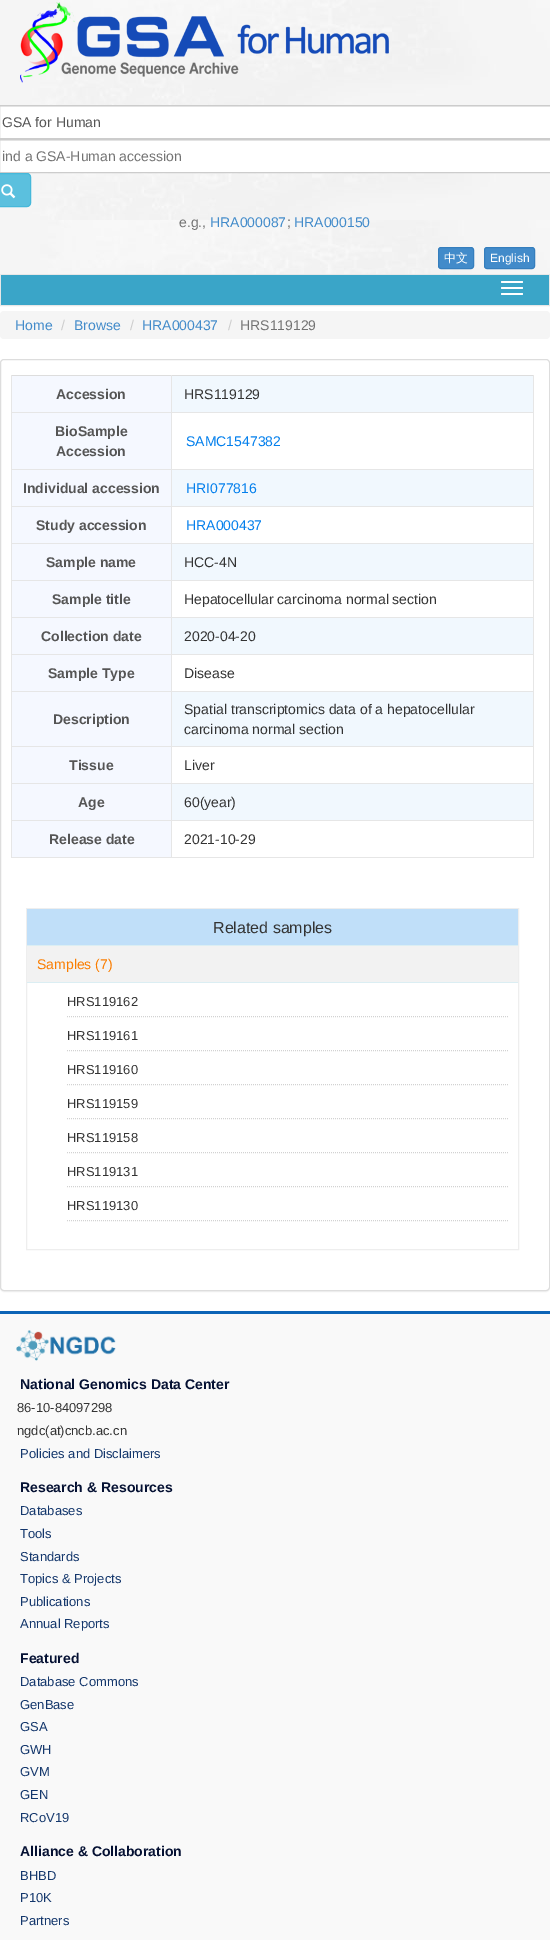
%!PS
<< /PageSize [550 1940] /PageUsesTransparency true >> setpagedevice
/rgb { dup -16 bitshift 255 div exch dup -8 bitshift 255 and 255 div exch 255 and 255 div setrgbcolor } def
/font { [ exch dup neg 0 0 3 -1 roll 0 0 ] selectfont } def
/text { moveto show } def
/alpha { dup .setfillconstantalpha .setstrokeconstantalpha } def
/roundrect { 5 dict begin { /r /h /w /y /x } { exch def } forall
  x r add y moveto x w add y 2 copy h add r arct x w add y h add x 1 index r arct
  x y h add x y r arct x y 2 copy exch w add exch r arct closepath end } def
/shadow { 12 dict begin { /a /b /q /h /w /y /x } { exch def } forall gsave /was 0 def
  9 -2 -9 { dup b mul 4 div /e exch def 1 sub .425 mul 2.718 exch exp 1 add a .99 .min exch div /now exch def
    1 1 now sub 1 was sub div sub alpha /was now def
    w h .min e 2 mul add 0 gt { x e sub y e sub w e 2 mul add h e 2 mul add
      q e add b .6 mul add w h .min 2 div e add .min 0 .max roundrect fill } if } for grestore end } def
/picture { 5 dict begin { /h /w /y /x /name } { exch def } forall
  gsave x y translate w h scale
  w h 8 [w 0 0 h 0 0] name (r) file false 3 colorimage grestore end } def
0 .pushpdf14devicefilter
0 1940 translate 1 -1 scale
4 setmiterlimit
/s1 { /LiberationSans-Regular 14 font 16#555555 rgb } def
/s2 { /LiberationSans-Regular 14 font 16#737373 rgb } def
/s3 { /LiberationSans-Regular 14 font 16#428BCA rgb } def
/s4 { /WenQuanYiZenHei-Medium 12 font 16#FFFFFF rgb } def
/s5 { /LiberationSans-Regular 12 font 16#FFFFFF rgb } def
/s6 { /LiberationSans-Regular 14 font 16#CCCCCC rgb } def
/s7 { /LiberationSans-Bold 14 font 16#555555 rgb } def
/s8 { /LiberationSans-Regular 14 font 16#333333 rgb } def
/s9 { /LiberationSans-Regular 14 font 16#037FEC rgb } def
/s10 { /LiberationSans-Regular 16 font 16#333333 rgb } def
/s11 { /LiberationSans-Regular 14 font 16#FA7D00 rgb } def
/s12 { /LiberationSans-Regular 13 font 16#333333 rgb } def
/s13 { /LiberationSans-Bold 14 font 16#051133 rgb } def
/s14 { /LiberationSans-Regular 13 font 16#14376C rgb } def
16#FFFFFF rgb
0 0 550 1940 rectfill
(pic1.raw) 0 0 550 274 picture
(pic2.raw) 20 2 369 81 picture
0 107 550 31 rectfill
16#ECECEC rgb
-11 107 moveto 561 107 lineto 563 107 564 108 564 110 curveto 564 109 lineto 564 107 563 106 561 106 curveto -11 106 lineto -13 106 -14 107 -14 109 curveto -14 110 lineto -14 108 -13 107 -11 107 curveto closepath fill
16#CCCCCC rgb
-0.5 105.5 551 33 rectstroke
s1
(GSA for Human) 2 127 text
16#FFFFFF rgb
0 141 550 31 rectfill
16#ECECEC rgb
-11 141 moveto 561 141 lineto 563 141 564 142 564 144 curveto 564 143 lineto 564 141 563 140 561 140 curveto -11 140 lineto -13 140 -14 141 -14 143 curveto -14 144 lineto -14 142 -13 141 -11 141 curveto closepath fill
16#CCCCCC rgb
-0.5 139.5 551 33 rectstroke
s2
(ind a GSA-Human accession) 2 161 text
16#5BC0DE rgb
-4.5 173.5 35 33 3.5 roundrect gsave fill grestore
16#46B8DA rgb
stroke
(pic3.raw) 1 184 15 15 picture
s2
(e.g.,) 179 227 text
s3
(HRA000087) 210 227 text
s2
(;) 287 227 text
s3
(HRA000150) 294 227 text
438.5 247.5 35 21 2.5 roundrect gsave fill grestore
16#357EBD rgb
stroke
s4
(中文) 444 262 text
16#428BCA rgb
484.5 247.5 50 21 2.5 roundrect gsave fill grestore
16#357EBD rgb
stroke
s5
(English) 490 262 text
16#E7E7E7 rgb
0.5 274.5 549 31 rectstroke
16#3AA5C8 rgb
1 275 548 30 rectfill
16#FFFFFF rgb
501 281 22 2 1 roundrect fill
501 287 22 2 1 roundrect fill
501 293 22 2 1 roundrect fill
16#F5F5F5 rgb
0 311 550 28 4 roundrect fill
s3
(Home) 15 330 text
s6
(/) 61 330 text
s3
(Browse) 74 330 text
s6
(/) 130 330 text
s3
(HRA000437) 142 330 text
s6
(/) 228 330 text
s2
(HRS119129) 240 330 text
16#000000 rgb
0 360 550 932 4 0.5 0.05 shadow
16#FFFFFF rgb
0.5 359.5 549 931 3.5 roundrect gsave fill grestore
16#DDDDDD rgb
stroke
16#F1F8FE rgb
172 376 361 36 rectfill
16#F5F8FF rgb
12 376 159 36 rectfill
16#DDDDDD rgb
11 375 523 1 rectfill
16#E6E6E6 rgb
533 412 1 446 rectfill
533 375 1 38 rectfill
171 857 363 1 rectfill
171 820 1 38 rectfill
171 820 363 1 rectfill
171 783 1 38 rectfill
171 783 363 1 rectfill
171 746 1 38 rectfill
171 746 363 1 rectfill
171 691 1 56 rectfill
171 691 363 1 rectfill
171 654 1 38 rectfill
171 654 363 1 rectfill
171 617 1 38 rectfill
171 617 363 1 rectfill
171 580 1 38 rectfill
171 580 363 1 rectfill
171 543 1 38 rectfill
171 543 363 1 rectfill
171 506 1 38 rectfill
171 506 363 1 rectfill
171 469 1 38 rectfill
171 469 363 1 rectfill
171 412 1 58 rectfill
171 412 363 1 rectfill
171 375 1 38 rectfill
11 857 161 1 rectfill
11 820 1 38 rectfill
11 820 161 1 rectfill
11 783 1 38 rectfill
11 783 161 1 rectfill
11 746 1 38 rectfill
11 746 161 1 rectfill
11 691 1 56 rectfill
11 691 161 1 rectfill
11 654 1 38 rectfill
11 654 161 1 rectfill
11 617 1 38 rectfill
11 617 161 1 rectfill
11 580 1 38 rectfill
11 580 161 1 rectfill
11 543 1 38 rectfill
11 543 161 1 rectfill
11 506 1 38 rectfill
11 506 161 1 rectfill
11 469 1 38 rectfill
11 469 161 1 rectfill
11 412 1 58 rectfill
11 412 161 1 rectfill
11 375 1 38 rectfill
s7
(Accession) 56 399 text
s8
(HRS119129) 184 399 text
16#F5F8FF rgb
12 413 159 56 rectfill
s7
(BioSample) 55 436 text
(Accession) 56 456 text
s9
(SAMC1547382) 186 446 text
16#F1F8FE rgb
172 470 361 36 rectfill
16#F5F8FF rgb
12 470 159 36 rectfill
s7
(Individual accession) 23 493 text
s9
(HRI077816) 186 493 text
16#F5F8FF rgb
12 507 159 36 rectfill
s7
(Study accession) 36 530 text
s9
(HRA000437) 186 530 text
16#F1F8FE rgb
172 544 361 36 rectfill
16#F5F8FF rgb
12 544 159 36 rectfill
s7
(Sample name) 46 567 text
s8
(HCC-4N) 184 567 text
16#F5F8FF rgb
12 581 159 36 rectfill
s7
(Sample title) 52 604 text
s8
(Hepatocellular carcinoma normal section) 184 604 text
16#F1F8FE rgb
172 618 361 36 rectfill
16#F5F8FF rgb
12 618 159 36 rectfill
s7
(Collection date) 41 641 text
s8
(2020-04-20) 184 641 text
16#F5F8FF rgb
12 655 159 36 rectfill
s7
(Sample Type) 48 678 text
s8
(Disease) 184 678 text
16#F1F8FE rgb
172 692 361 54 rectfill
16#F5F8FF rgb
12 692 159 54 rectfill
s7
(Description) 53 724 text
s8
(Spatial transcriptomics data of a hepatocellular) 184 714 text
(carcinoma normal section) 184 734 text
16#F5F8FF rgb
12 747 159 36 rectfill
s7
(Tissue) 69 770 text
s8
(Liver) 184 770 text
16#F1F8FE rgb
172 784 361 36 rectfill
16#F5F8FF rgb
12 784 159 36 rectfill
s7
(Age) 78 807 text
s8
(60\(year\)) 184 807 text
16#F5F8FF rgb
12 821 159 36 rectfill
s7
(Release date) 49 844 text
s8
(2021-10-29) 184 844 text
16#EEEEEE rgb
26.5 908.5 492 341 rectstroke
16#C0DFF9 rgb
27 909 491 36 rectfill
16#DBEEF3 rgb
27 945 491 1 rectfill
s10
(Related samples) 213 933 text
16#F2F2F2 rgb
27 946 491 36 rectfill
16#DBEEF3 rgb
27 982 491 1 rectfill
s11
(Samples \(7\)) 37 969 text
16#D2D2D2 rgb
[1 1] 0 setdash
67 1016.5 moveto 508 1016.5 lineto stroke
s12
(HRS119162) 67 1006 text
16#D2D2D2 rgb
67 1050.5 moveto 508 1050.5 lineto stroke
s12
(HRS119161) 67 1040 text
16#D2D2D2 rgb
67 1084.5 moveto 508 1084.5 lineto stroke
s12
(HRS119160) 67 1074 text
16#D2D2D2 rgb
67 1118.5 moveto 508 1118.5 lineto stroke
s12
(HRS119159) 67 1108 text
16#D2D2D2 rgb
67 1152.5 moveto 508 1152.5 lineto stroke
s12
(HRS119158) 67 1142 text
16#D2D2D2 rgb
67 1186.5 moveto 508 1186.5 lineto stroke
s12
(HRS119131) 67 1176 text
16#D2D2D2 rgb
67 1220.5 moveto 508 1220.5 lineto stroke
s12
(HRS119130) 67 1210 text
16#0C64B6 rgb
0 1311 550 3 rectfill
16#F9F9F9 rgb
0 1314 550 626 rectfill
(pic4.raw) 16 1330 100 31 picture
s13
(National Genomics Data Center) 20 1389 text
s12
(86-10-84097298) 17 1412 text
(ngdc\(at\)cncb.ac.cn) 17 1435 text
s14
(Policies and Disclaimers) 20 1458 text
s13
(Research & Resources) 20 1492 text
s14
(Databases) 20 1515 text
(Tools) 20 1538 text
(Standards) 20 1561 text
(Topics & Projects) 20 1583 text
(Publications) 20 1606 text
(Annual Reports) 20 1628 text
s13
(Featured) 20 1663 text
s14
(Database Commons) 20 1686 text
(GenBase) 20 1709 text
(GSA) 20 1731 text
(GWH) 20 1754 text
(GVM) 20 1776 text
(GEN) 20 1799 text
(RCoV19) 20 1822 text
s13
(Alliance & Collaboration) 20 1856 text
s14
(BHBD) 20 1880 text
(P10K) 20 1902 text
(Partners) 20 1925 text
.poppdf14devicefilter showpage
